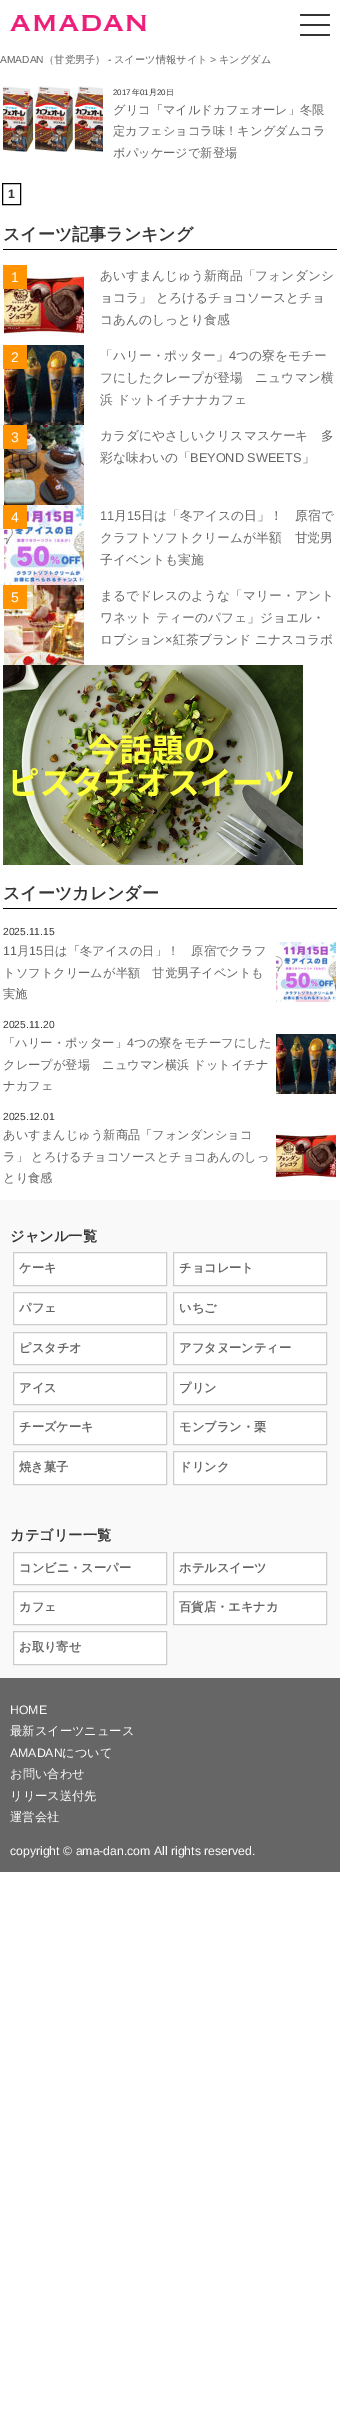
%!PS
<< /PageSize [340 2430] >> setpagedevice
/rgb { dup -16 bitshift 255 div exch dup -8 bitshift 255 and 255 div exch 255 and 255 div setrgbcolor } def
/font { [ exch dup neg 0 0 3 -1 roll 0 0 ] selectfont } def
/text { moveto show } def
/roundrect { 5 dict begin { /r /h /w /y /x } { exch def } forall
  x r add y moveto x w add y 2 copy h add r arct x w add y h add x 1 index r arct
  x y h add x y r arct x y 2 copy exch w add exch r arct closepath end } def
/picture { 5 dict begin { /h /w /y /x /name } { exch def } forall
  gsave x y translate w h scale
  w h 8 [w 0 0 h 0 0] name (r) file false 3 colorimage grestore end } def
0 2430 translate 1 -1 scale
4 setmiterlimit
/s1 { /LiberationSans-Regular 10.25 font 16#666666 rgb } def
/s2 { /WenQuanYiZenHei-Medium 10.25 font 16#666666 rgb } def
/s3 { /LiberationSans-Regular 8 font 16#363636 rgb } def
/s4 { /WenQuanYiZenHei-Medium 8 font 16#363636 rgb } def
/s5 { /WenQuanYiZenHei-Medium 12.25 font 16#666666 rgb } def
/s6 { /LiberationSans-Bold 12.25 font 16#363636 rgb } def
/s7 { /WenQuanYiZenHei-Bold 17 font 16#363636 rgb } def
/s8 { /LiberationSans-Regular 14 font 16#FFFFFF rgb } def
/s9 { /WenQuanYiZenHei-Medium 12.75 font 16#666666 rgb } def
/s10 { /LiberationSans-Regular 12.75 font 16#666666 rgb } def
/s11 { /LiberationSans-Regular 10.25 font 16#363636 rgb } def
/s12 { /LiberationSans-Regular 12.25 font 16#666666 rgb } def
/s13 { /WenQuanYiZenHei-Bold 14.25 font 16#363636 rgb } def
/s14 { /WenQuanYiZenHei-Bold 12.25 font 16#666666 rgb } def
/s15 { /LiberationSans-Regular 12.25 font 16#FFFFFF rgb } def
/s16 { /WenQuanYiZenHei-Medium 12.25 font 16#FFFFFF rgb } def
16#FFFFFF rgb
0 0 340 2430 rectfill
(pic1.raw) 10 15 136 16 picture
16#333333 rgb
300 14 30 2 1 roundrect fill
300 24 30 2 1 roundrect fill
300 34 30 2 1 roundrect fill
s1
(AMADAN) 0 63 text
s2
(（甘党男子）) 44 63 text
s1
(-) 108 63 text
s2
(スイーツ情報サイト) 114 63 text
s1
(>) 210 63 text
s2
(キングダム) 219 63 text
(pic2.raw) 3 86 100 66 picture
s3
(2017) 113 95 text
s4
(年) 132 95 text
s3
(01) 140 95 text
s4
(月) 149 95 text
s3
(20) 157 95 text
s4
(日) 166 95 text
s5
(グリコ「マイルドカフェオーレ」冬限) 113 114 text
(定カフェショコラ味！キングダムコラ) 113 135 text
(ボパッケージで新登場) 113 157 text
16#000000 rgb
2.5 183.5 18 21 rectstroke
s6
(1) 8 198 text
16#000000 rgb
3 249 334 1 rectfill
s7
(スイーツ記事ランキング) 3 240 text
(pic3.raw) 4 273 80 64 picture
16#FF9300 rgb
3 265 24 24 rectfill
s8
(1) 11 282 text
s9
(あいすまんじゅう新商品「フォンダンシ) 100 280 text
(ョコラ」 とろけるチョコソースとチョ) 100 302 text
(コあんのしっとり食感) 100 324 text
(pic4.raw) 4 345 80 80 picture
(「ハリー・ポッター」) 100 360 text
s10
(4) 229 360 text
s9
(つの寮をモチー) 236 360 text
16#FF9300 rgb
3 345 24 24 rectfill
s8
(2) 11 362 text
s9
(フにしたクレープが登場　ニュウマン横) 100 382 text
(浜 ドットイチナナカフェ) 100 404 text
(pic5.raw) 4 425 80 80 picture
(カラダにやさしいクリスマスケーキ　多) 100 440 text
16#FF9300 rgb
3 425 24 24 rectfill
s8
(3) 11 442 text
s9
(彩な味わいの「) 100 462 text
s10
(BEYOND SWEETS) 190 462 text
s9
(」) 302 462 text
(pic6.raw) 4 505 80 80 picture
s10
(11) 100 520 text
s9
(月) 114 520 text
s10
(15) 127 520 text
s9
(日は「冬アイスの日」！　原宿で) 141 520 text
16#FF9300 rgb
3 505 24 24 rectfill
s8
(4) 11 522 text
s9
(クラフトソフトクリームが半額　甘党男) 100 542 text
(子イベントも実施) 100 564 text
(pic7.raw) 4 585 80 80 picture
(まるでドレスのような「マリー・アント) 100 600 text
16#FF9300 rgb
3 585 24 24 rectfill
s8
(5) 11 602 text
s9
(ワネット ティーのパフェ」ジョエル・) 100 622 text
(ロブション) 100 644 text
s10
(×) 165 644 text
s9
(紅茶ブランド ニナスコラボ) 173 644 text
(pic8.raw) 3 665 300 200 picture
16#000000 rgb
3 908 334 1 rectfill
s7
(スイーツカレンダー) 3 899 text
s11
(2025.11.15) 3 935 text
s12
(11) 3 955 text
s5
(月) 17 955 text
s12
(15) 29 955 text
s5
(日は「冬アイスの日」！　原宿でクラフ) 43 955 text
(pic9.raw) 276 942 60 60 picture
(トソフトクリームが半額　甘党男子イベントも) 3 977 text
(実施) 3 998 text
s11
(2025.11.20) 3 1028 text
s5
(「ハリー・ポッター」) 3 1047 text
s12
(4) 127 1047 text
s5
(つの寮をモチーフにした) 134 1047 text
(pic10.raw) 276 1034 60 60 picture
(クレープが登場　ニュウマン横浜 ドットイチナ) 3 1069 text
(ナカフェ) 3 1090 text
s11
(2025.12.01) 3 1120 text
s5
(あいすまんじゅう新商品「フォンダンショコ) 3 1139 text
(pic11.raw) 276 1131 60 50 picture
(ラ」 とろけるチョコソースとチョコあんのしっ) 3 1161 text
(とり食感) 3 1182 text
16#F9F9F9 rgb
0 1200 340 478 rectfill
s13
(ジャンル一覧) 10 1241 text
16#FFFFFF rgb
13.5 1252.5 moveto 166.5 1252.5 lineto 166.5 1285.5 lineto 13.5 1285.5 lineto closepath gsave fill grestore
16#CCCCCC rgb
stroke
s14
(ケーキ) 19 1272 text
16#FFFFFF rgb
173.5 1252.5 moveto 326.5 1252.5 lineto 326.5 1285.5 lineto 173.5 1285.5 lineto closepath gsave fill grestore
16#CCCCCC rgb
stroke
s14
(チョコレート) 179 1272 text
16#FFFFFF rgb
13.5 1292.5 moveto 166.5 1292.5 lineto 166.5 1324.5 lineto 13.5 1324.5 lineto closepath gsave fill grestore
16#CCCCCC rgb
stroke
s14
(パフェ) 19 1312 text
16#FFFFFF rgb
173.5 1292.5 moveto 326.5 1292.5 lineto 326.5 1324.5 lineto 173.5 1324.5 lineto closepath gsave fill grestore
16#CCCCCC rgb
stroke
s14
(いちご) 179 1312 text
16#FFFFFF rgb
13.5 1332.5 moveto 166.5 1332.5 lineto 166.5 1364.5 lineto 13.5 1364.5 lineto closepath gsave fill grestore
16#CCCCCC rgb
stroke
s14
(ピスタチオ) 19 1352 text
16#FFFFFF rgb
173.5 1332.5 moveto 326.5 1332.5 lineto 326.5 1364.5 lineto 173.5 1364.5 lineto closepath gsave fill grestore
16#CCCCCC rgb
stroke
s14
(アフタヌーンティー) 179 1352 text
16#FFFFFF rgb
13.5 1372.5 moveto 166.5 1372.5 lineto 166.5 1404.5 lineto 13.5 1404.5 lineto closepath gsave fill grestore
16#CCCCCC rgb
stroke
s14
(アイス) 19 1392 text
16#FFFFFF rgb
173.5 1372.5 moveto 326.5 1372.5 lineto 326.5 1404.5 lineto 173.5 1404.5 lineto closepath gsave fill grestore
16#CCCCCC rgb
stroke
s14
(プリン) 179 1392 text
16#FFFFFF rgb
13.5 1411.5 moveto 166.5 1411.5 lineto 166.5 1444.5 lineto 13.5 1444.5 lineto closepath gsave fill grestore
16#CCCCCC rgb
stroke
s14
(チーズケーキ) 19 1431 text
16#FFFFFF rgb
173.5 1411.5 moveto 326.5 1411.5 lineto 326.5 1444.5 lineto 173.5 1444.5 lineto closepath gsave fill grestore
16#CCCCCC rgb
stroke
s14
(モンブラン・栗) 179 1431 text
16#FFFFFF rgb
13.5 1451.5 moveto 166.5 1451.5 lineto 166.5 1484.5 lineto 13.5 1484.5 lineto closepath gsave fill grestore
16#CCCCCC rgb
stroke
s14
(焼き菓子) 19 1471 text
16#FFFFFF rgb
173.5 1451.5 moveto 326.5 1451.5 lineto 326.5 1484.5 lineto 173.5 1484.5 lineto closepath gsave fill grestore
16#CCCCCC rgb
stroke
s14
(ドリンク) 179 1471 text
s13
(カテゴリー一覧) 10 1540 text
16#FFFFFF rgb
13.5 1552.5 moveto 166.5 1552.5 lineto 166.5 1584.5 lineto 13.5 1584.5 lineto closepath gsave fill grestore
16#CCCCCC rgb
stroke
s14
(コンビニ・スーパー) 19 1572 text
16#FFFFFF rgb
173.5 1552.5 moveto 326.5 1552.5 lineto 326.5 1584.5 lineto 173.5 1584.5 lineto closepath gsave fill grestore
16#CCCCCC rgb
stroke
s14
(ホテルスイーツ) 179 1572 text
16#FFFFFF rgb
13.5 1591.5 moveto 166.5 1591.5 lineto 166.5 1624.5 lineto 13.5 1624.5 lineto closepath gsave fill grestore
16#CCCCCC rgb
stroke
s14
(カフェ) 19 1611 text
16#FFFFFF rgb
173.5 1591.5 moveto 326.5 1591.5 lineto 326.5 1624.5 lineto 173.5 1624.5 lineto closepath gsave fill grestore
16#CCCCCC rgb
stroke
s14
(百貨店・エキナカ) 179 1611 text
16#FFFFFF rgb
13.5 1631.5 moveto 166.5 1631.5 lineto 166.5 1664.5 lineto 13.5 1664.5 lineto closepath gsave fill grestore
16#CCCCCC rgb
stroke
s14
(お取り寄せ) 19 1651 text
0 1678 340 194 rectfill
s15
(HOME) 10 1714 text
s16
(最新スイーツニュース) 10 1735 text
s15
(AMADAN) 10 1757 text
s16
(について) 62 1757 text
(お問い合わせ) 10 1778 text
(リリース送付先) 10 1800 text
(運営会社) 10 1821 text
s15
(copyright © ama-dan.com All rights reserved.) 10 1855 text
showpage
